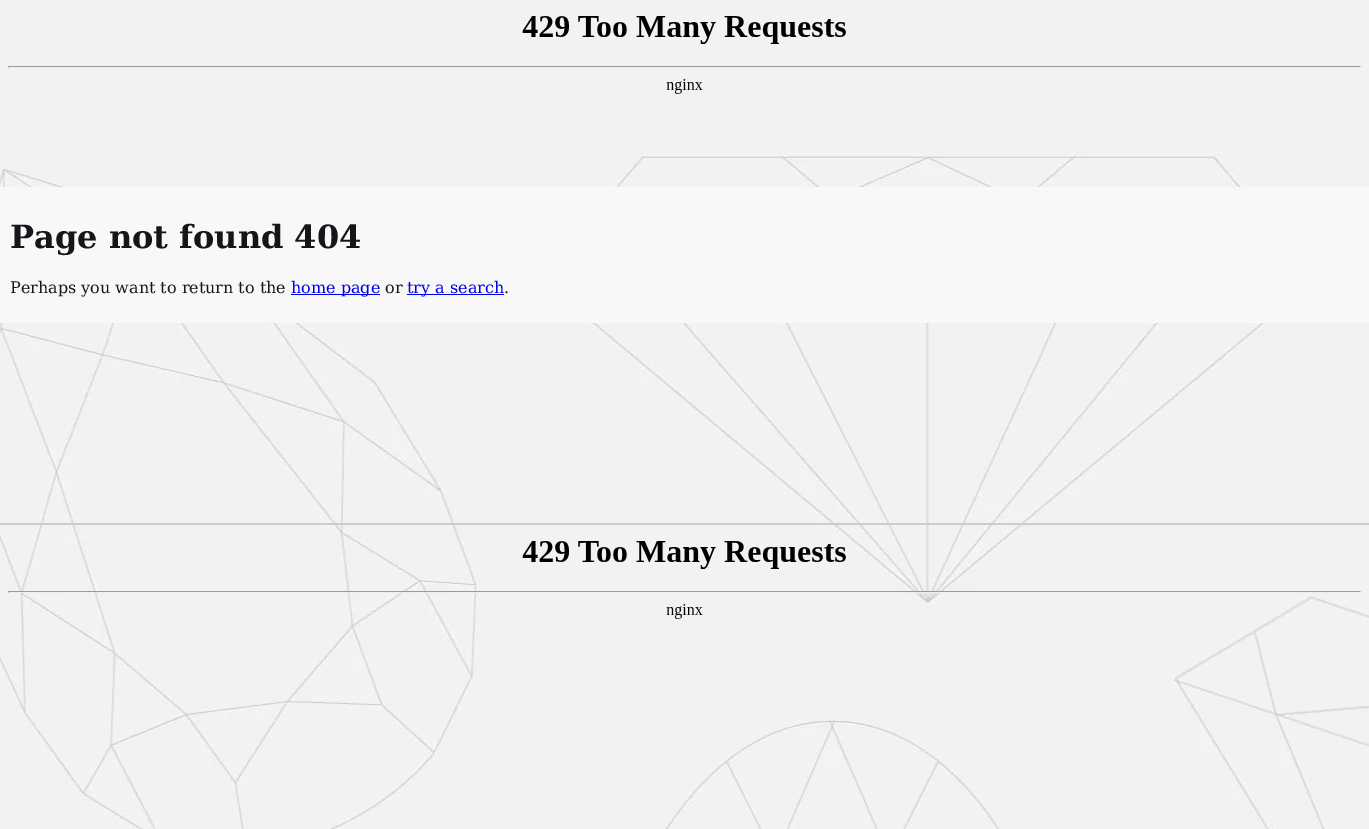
%!PS
<< /PageSize [1369 829] >> setpagedevice
/rgb { dup -16 bitshift 255 div exch dup -8 bitshift 255 and 255 div exch 255 and 255 div setrgbcolor } def
/font { [ exch dup neg 0 0 3 -1 roll 0 0 ] selectfont } def
/text { moveto show } def
/picture { 5 dict begin { /h /w /y /x /name } { exch def } forall
  gsave x y translate w h scale
  w h 8 [w 0 0 h 0 0] name (r) file false 3 colorimage grestore end } def
0 829 translate 1 -1 scale
4 setmiterlimit
/s1 { /DejaVuSerif-Bold 32 font 16#161519 rgb } def
/s2 { /DejaVuSerif-Regular 16 font 16#161519 rgb } def
/s3 { /DejaVuSerif-Regular 16 font 16#0000EE rgb } def
16#FFFFFF rgb
0 0 1369 829 rectfill
(pic1.raw) 0 0 1369 829 picture
(pic2.raw) 8 16 1353 78 picture
16#F8F8F8 rgb
0 187 1369 136 rectfill
s1
(Page not found 404) 10 248 text
s2
(Perhaps you want to return to the) 10 293 text
16#0000EE rgb
291 294 89 1 rectfill
(home page) 291 293 text
s2
(or) 385 293 text
16#0000EE rgb
407 294 97 1 rectfill
(try a search) 407 293 text
s2
(.) 504 293 text
16#CCCCCC rgb
0 523 1369 2 rectfill
(pic3.raw) 8 541 1353 78 picture
showpage
